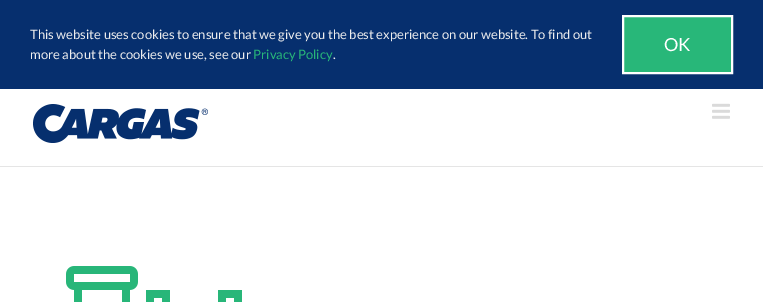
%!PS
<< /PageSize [763 302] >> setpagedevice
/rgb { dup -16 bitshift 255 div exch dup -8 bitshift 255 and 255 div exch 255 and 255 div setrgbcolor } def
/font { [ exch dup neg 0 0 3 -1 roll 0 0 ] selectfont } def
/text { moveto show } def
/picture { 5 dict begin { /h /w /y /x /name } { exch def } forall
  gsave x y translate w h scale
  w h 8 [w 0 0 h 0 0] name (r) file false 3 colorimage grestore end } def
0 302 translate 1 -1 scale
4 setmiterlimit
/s1 { /Lato-Regular 13 font 16#EEEEEE rgb } def
/s2 { /Lato-Regular 13 font 16#28B779 rgb } def
/s3 { /Lato-Regular 18 font 16#FFFFFF rgb } def
16#FFFFFF rgb
0 0 763 302 rectfill
16#062F6E rgb
0 0 763 89 rectfill
s1
(This website uses cookies to ensure that we give you the best experience on our website. To find out) 30 39 text
(more about the cookies we use, see our) 30 59 text
s2
(Privacy Policy) 253 59 text
s1
(.) 333 59 text
16#28B779 rgb
623 16 moveto 732 16 lineto 732 73 lineto 623 73 lineto closepath gsave fill grestore
16#FFFFFF rgb
2 setlinewidth
stroke
s3
(OK) 664 51 text
16#E5E5E5 rgb
0 166 763 1 rectfill
(pic1.raw) 33 104 175 39 picture
(pic2.raw) 712 103 18 16 picture
(pic3.raw) 66 266 176 36 picture
showpage
